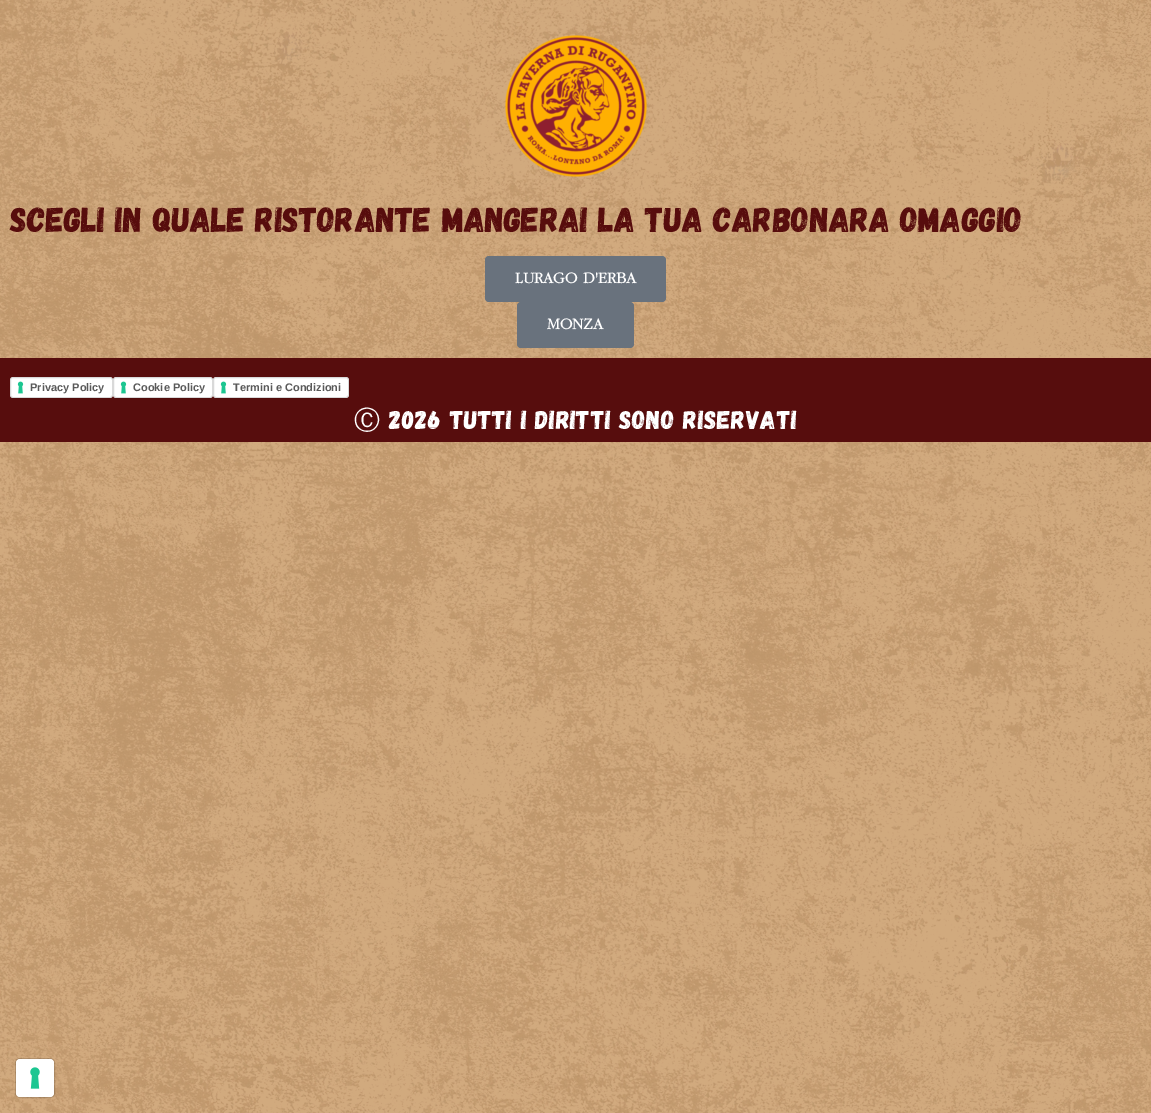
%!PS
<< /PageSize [1151 1113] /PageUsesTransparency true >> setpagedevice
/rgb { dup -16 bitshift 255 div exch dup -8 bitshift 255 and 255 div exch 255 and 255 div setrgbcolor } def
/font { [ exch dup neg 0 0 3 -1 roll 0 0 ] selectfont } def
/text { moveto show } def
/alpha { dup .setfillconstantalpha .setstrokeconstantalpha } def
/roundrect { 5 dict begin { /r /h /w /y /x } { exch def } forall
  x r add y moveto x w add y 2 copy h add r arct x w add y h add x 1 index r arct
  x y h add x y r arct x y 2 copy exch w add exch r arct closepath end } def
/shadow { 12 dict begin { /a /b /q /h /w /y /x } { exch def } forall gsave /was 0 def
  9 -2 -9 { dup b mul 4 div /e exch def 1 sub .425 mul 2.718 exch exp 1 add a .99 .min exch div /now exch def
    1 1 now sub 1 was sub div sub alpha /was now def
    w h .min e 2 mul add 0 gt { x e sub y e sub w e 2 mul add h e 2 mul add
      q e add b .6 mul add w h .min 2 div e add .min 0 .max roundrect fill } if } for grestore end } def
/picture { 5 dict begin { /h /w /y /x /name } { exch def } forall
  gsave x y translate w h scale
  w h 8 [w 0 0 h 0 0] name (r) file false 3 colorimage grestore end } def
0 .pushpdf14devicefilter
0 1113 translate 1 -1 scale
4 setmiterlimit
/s1 { /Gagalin-Regular 35 font 16#570D0D rgb } def
/s2 { /Garamond-Bold 16 font 16#FFFFFF rgb } def
/s3 { /LiberationSans-Bold 11 font 16#595959 rgb } def
16#FFFFFF rgb
0 0 1151 1113 rectfill
(pic1.raw) 0 0 1151 1113 picture
(pic2.raw) 505 35 142 142 picture
s1
(SCEGLI IN QUALE RISTORANTE MANGERAI LA TUA CARBONARA OMAGGIO) 10 232 text
16#69727D rgb
485 256 181 46 4 roundrect fill
s2
(LURAGO D'ERBA) 515 283 text
16#69727D rgb
517 302 117 46 4 roundrect fill
s2
(MONZA) 547 329 text
16#570D0D rgb
0 358 1151 84 rectfill
16#000000 rgb
11 379 101 19 2 0.5 0.15 shadow
16#FFFFFF rgb
10 377 103 21 3 roundrect fill
(pic3.raw) 17 381 7 13 picture
0.15 alpha
16#000000 rgb
10.5 377.5 102 20 2.5 roundrect stroke
1 alpha
s3
(Privacy Policy) 30 391 text
16#000000 rgb
114 379 98 19 2 0.5 0.15 shadow
16#FFFFFF rgb
113 377 100 21 3 roundrect fill
(pic3.raw) 120 381 7 13 picture
0.15 alpha
16#000000 rgb
113.5 377.5 99 20 2.5 roundrect stroke
1 alpha
s3
(Cookie Policy) 133 391 text
16#000000 rgb
214 379 134 19 2 0.5 0.15 shadow
16#FFFFFF rgb
213 377 136 21 3 roundrect fill
(pic3.raw) 220 381 7 13 picture
0.15 alpha
16#000000 rgb
213.5 377.5 135 20 2.5 roundrect stroke
1 alpha
s3
(Termini e Condizioni) 233 391 text
/WenQuanYiZenHei-Medium 26 font
16#FFFFFF rgb
354 429 moveto 0.5 0 (Ⓒ) ashow
/Gagalin-Regular 26 font
389 429 moveto 0.5 0 (2026 TUTTI I DIRITTI SONO RISERVATI) ashow
0.15 alpha
16#000000 rgb
15.5 1058.5 39 39 4.5 roundrect stroke
1 alpha
16#FFFFFF rgb
16 1059 38 38 4 roundrect fill
(pic4.raw) 30 1067 10 22 picture
.poppdf14devicefilter showpage
